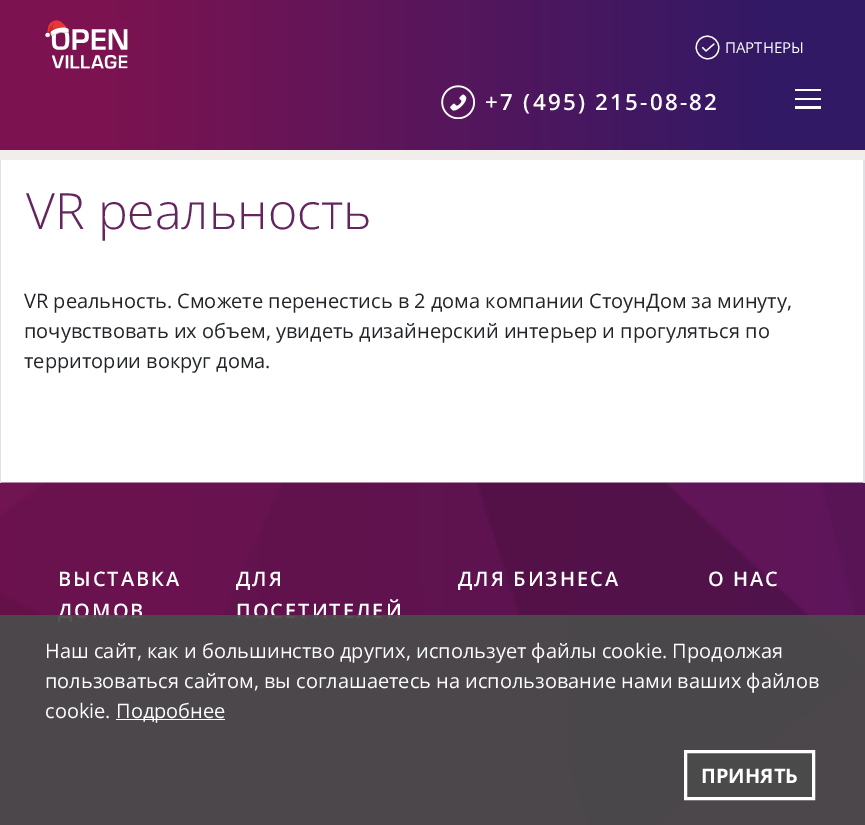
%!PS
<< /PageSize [865 825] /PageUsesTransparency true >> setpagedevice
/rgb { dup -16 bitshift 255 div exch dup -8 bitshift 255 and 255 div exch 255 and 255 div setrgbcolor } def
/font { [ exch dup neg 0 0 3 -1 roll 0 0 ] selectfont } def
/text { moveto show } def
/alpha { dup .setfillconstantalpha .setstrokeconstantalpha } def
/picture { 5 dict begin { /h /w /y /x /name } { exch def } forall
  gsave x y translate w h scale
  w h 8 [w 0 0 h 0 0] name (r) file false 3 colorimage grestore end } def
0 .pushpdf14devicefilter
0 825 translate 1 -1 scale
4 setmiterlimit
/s1 { /OpenSans-Regular 15 font 16#FFFFFF rgb } def
/s2 { /OpenSans-Light 50 font 16#632460 rgb } def
/s3 { /OpenSans-Regular 20 font 16#212529 rgb } def
/s4 { /OpenSans-Regular 20 font 16#FFFFFF rgb } def
/s5 { /OpenSans-Bold 20 font 16#FFFFFF rgb } def
16#FFFFFF rgb
0 0 865 825 rectfill
gsave 0 0 moveto 865 0 lineto 865 150 lineto 0 150 lineto closepath clip newpath
<< /ShadingType 2 /ColorSpace /DeviceRGB /Coords [0 75 865 75] /Extend [true true] /Function << /FunctionType 3 /Domain [0 1] /Functions [<< /FunctionType 2 /Domain [0 1] /C0 [0.486 0.075 0.314] /C1 [0.486 0.075 0.314] /N 1 >> << /FunctionType 2 /Domain [0 1] /C0 [0.486 0.075 0.314] /C1 [0.196 0.098 0.4] /N 1 >> << /FunctionType 2 /Domain [0 1] /C0 [0.196 0.098 0.4] /C1 [0.196 0.098 0.4] /N 1 >>] /Bounds [0.12 0.9] /Encode [0 1 0 1 0 1] >> >> shfill grestore
(pic1.raw) 45 20 83 49 picture
1.2 setlinewidth
1 setlinecap
1 setlinejoin
699.5 39.5 moveto 710 29 726 45 715.5 55.5 curveto 705 66 689 50 699.5 39.5 curveto closepath 706 51 moveto 714 44 lineto 706 51 moveto 702.5 47.5 lineto stroke
s1
(ПАРТНЕРЫ) 725 53 text
(pic2.raw) 441 85 35 34 picture
/OpenSans-SemiBold 22.4 font
485 110 moveto 2.25 0 (+7 \(495\) 215-08-82) ashow
795 89 26 2 rectfill
795 98 26 2 rectfill
795 106 26 3 rectfill
16#F0EDEA rgb
0 150 865 10 rectfill
16#DEE2E6 rgb
864 160 1 260 rectfill
0 160 1 260 rectfill
(pic3.raw) 0 482 865 343 picture
863 160 1 323 rectfill
s2
(VR реальность) 26 229 text
s3
(VR реальность. Сможете перенестись в 2 дома компании СтоунДом за минуту,) 24 308 text
(почувствовать их объем, увидеть дизайнерский интерьер и прогуляться по) 24 338 text
(территории вокруг дома.) 24 368 text
16#DEE2E6 rgb
864 420 1 63 rectfill
0 420 1 63 rectfill
/OpenSans-SemiBold 20 font
16#FFFFFF rgb
58 586 moveto 2 0 (ВЫСТАВКА) ashow
58 618 moveto 2 0 (ДОМОВ) ashow
236 586 moveto 2 0 (ДЛЯ) ashow
236 618 moveto 2 0 (ПОСЕТИТЕЛЕЙ) ashow
458 586 moveto 2 0 (ДЛЯ БИЗНЕСА) ashow
708 586 moveto 2 0 (О НАС) ashow
0.94 alpha
16#4A4A4A rgb
0 615 865 210 rectfill
1 alpha
s4
(Наш сайт, как и большинство других, использует файлы cookie. Продолжая) 45 658 text
(пользоваться сайтом, вы соглашаетесь на использование нами ваших файлов) 45 688 text
(cookie.) 45 718 text
116 719 109 1 rectfill
(Подробнее) 116 718 text
16#4A4A4A rgb
685.5 751.5 moveto 813.5 751.5 lineto 813.5 798.5 lineto 685.5 798.5 lineto closepath gsave fill grestore
16#FFFFFF rgb
3 setlinewidth
0 setlinecap
0 setlinejoin
stroke
s5
(ПРИНЯТЬ) 701 783 text
.poppdf14devicefilter showpage
